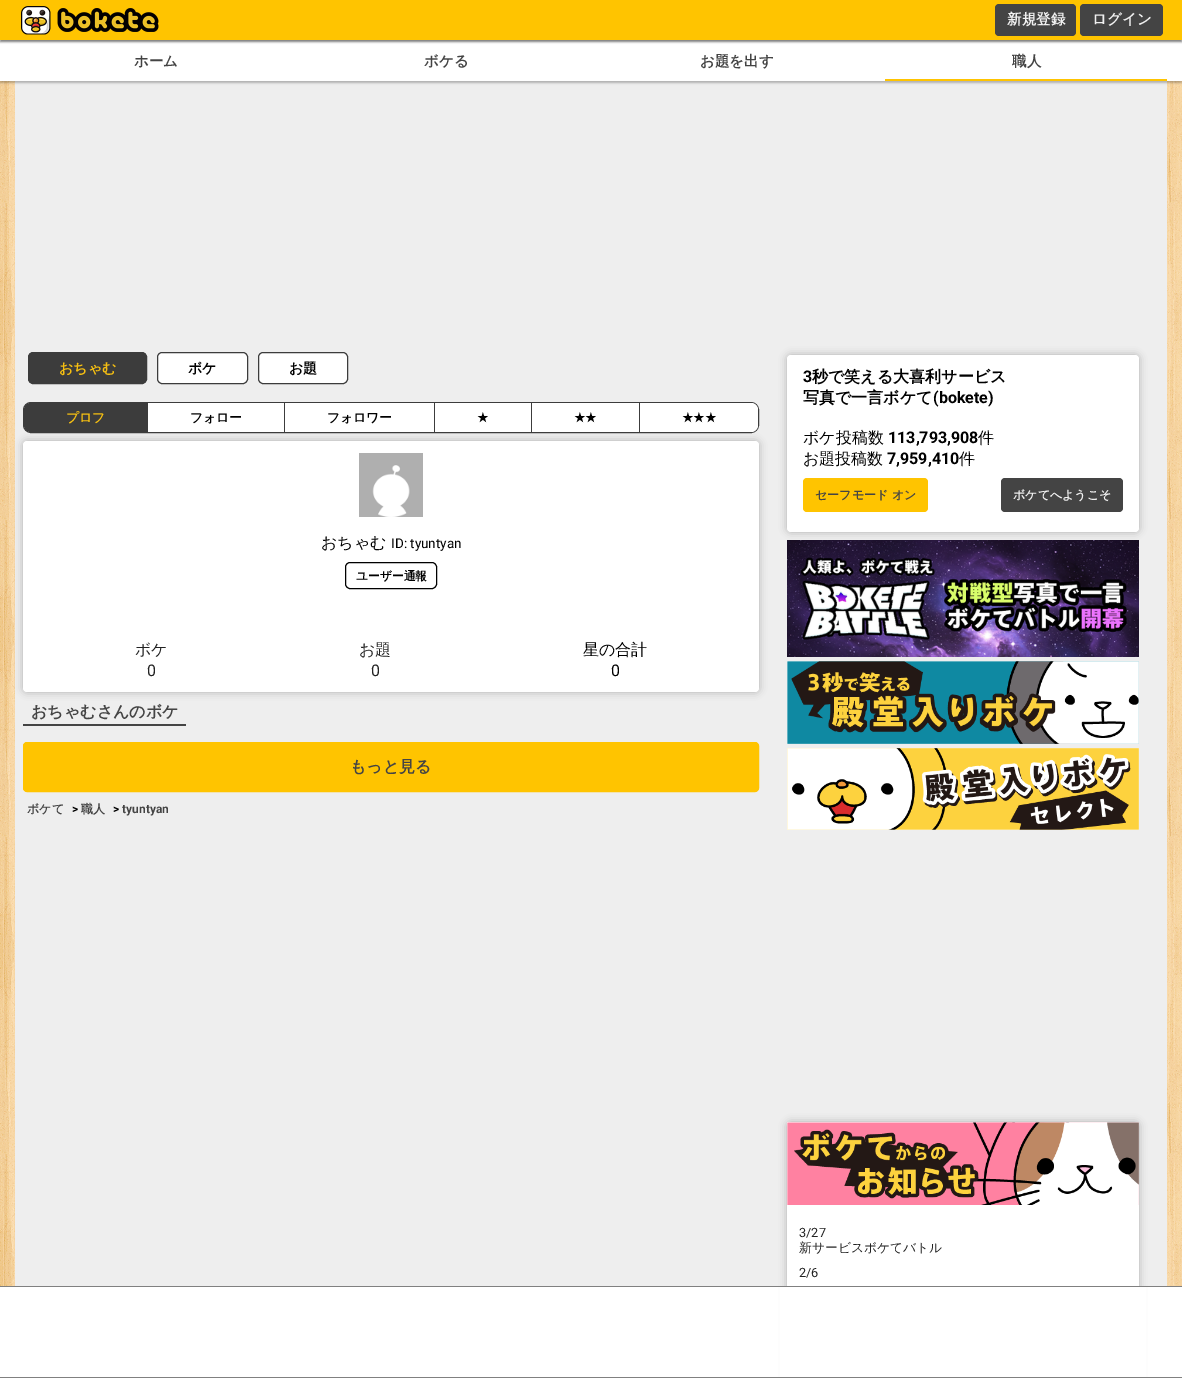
%!PS
<< /PageSize [1182 1378] /PageUsesTransparency true >> setpagedevice
/rgb { dup -16 bitshift 255 div exch dup -8 bitshift 255 and 255 div exch 255 and 255 div setrgbcolor } def
/font { [ exch dup neg 0 0 3 -1 roll 0 0 ] selectfont } def
/text { moveto show } def
/alpha { dup .setfillconstantalpha .setstrokeconstantalpha } def
/roundrect { 5 dict begin { /r /h /w /y /x } { exch def } forall
  x r add y moveto x w add y 2 copy h add r arct x w add y h add x 1 index r arct
  x y h add x y r arct x y 2 copy exch w add exch r arct closepath end } def
/shadow { 12 dict begin { /a /b /q /h /w /y /x } { exch def } forall gsave /was 0 def
  9 -2 -9 { dup b mul 4 div /e exch def 1 sub .425 mul 2.718 exch exp 1 add a .99 .min exch div /now exch def
    1 1 now sub 1 was sub div sub alpha /was now def
    w h .min e 2 mul add 0 gt { x e sub y e sub w e 2 mul add h e 2 mul add
      q e add b .6 mul add w h .min 2 div e add .min 0 .max roundrect fill } if } for grestore end } def
/picture { 5 dict begin { /h /w /y /x /name } { exch def } forall
  gsave x y translate w h scale
  w h 8 [w 0 0 h 0 0] name (r) file false 3 colorimage grestore end } def
0 .pushpdf14devicefilter
0 1378 translate 1 -1 scale
4 setmiterlimit
/s1 { /WenQuanYiZenHei-Bold 14.5 font 16#F0F0F0 rgb } def
/s2 { /WenQuanYiZenHei-Bold 14.5 font 16#444444 rgb } def
/s3 { /WenQuanYiZenHei-Bold 14 font 16#F6BF11 rgb } def
/s4 { /WenQuanYiZenHei-Bold 14 font 16#000000 rgb } def
/s5 { /WenQuanYiZenHei-Bold 12.75 font 16#F6BF11 rgb } def
/s6 { /WenQuanYiZenHei-Bold 12.75 font 16#000000 rgb } def
/s7 { /DejaVuSans-Bold 12.75 font 16#000000 rgb } def
/s8 { /WenQuanYiZenHei-Medium 16 font 16#000000 rgb } def
/s9 { /Roboto-Regular 13.5 font 16#000000 rgb } def
/s10 { /WenQuanYiZenHei-Bold 11.75 font 16#000000 rgb } def
/s11 { /WenQuanYiZenHei-Medium 16 font 16#222222 rgb } def
/s12 { /Roboto-Regular 16 font 16#222222 rgb } def
/s13 { /Roboto-Regular 16 font 16#000000 rgb } def
/s14 { /WenQuanYiZenHei-Bold 16 font 16#444444 rgb } def
/s15 { /WenQuanYiZenHei-Bold 12 font 16#444444 rgb } def
/s16 { /Roboto-Bold 12 font 16#000000 rgb } def
/s17 { /Roboto-Bold 12 font 16#444444 rgb } def
/s18 { /Roboto-Bold 16 font 16#000000 rgb } def
/s19 { /WenQuanYiZenHei-Bold 16 font 16#000000 rgb } def
/s20 { /WenQuanYiZenHei-Bold 12 font 16#F0F0F0 rgb } def
/s21 { /Roboto-Regular 12.75 font 16#222222 rgb } def
/s22 { /WenQuanYiZenHei-Medium 12.75 font 16#222222 rgb } def
16#FFFFFF rgb
0 0 1182 1378 rectfill
(pic1.raw) 0 81 1182 1205 picture
16#EEEEEE rgb
15 81 1152 1205 rectfill
16#000000 rgb
0 2 1182 81 0 1 0.25 shadow
16#FFFFFF rgb
0 40 1182 41 rectfill
16#000000 rgb
0 2 1182 40 0 1 0.5 shadow
16#FFC400 rgb
0 0 1182 40 rectfill
(pic2.raw) 21 6 138 29 picture
16#444444 rgb
995 4 81 32 4 roundrect fill
s1
(新規登録) 1007 24 text
16#444444 rgb
1080 4 83 32 4 roundrect fill
s1
(ログイン) 1092 24 text
s2
(ホーム) 134 66 text
(ボケる) 424 66 text
(お題を出す) 700 66 text
16#FFC400 rgb
885 79 282 2 rectfill
s2
(職人) 1012 66 text
16#3C3C3C rgb
28.5 352.5 118 31 4.5 roundrect gsave fill grestore
stroke
s3
(おちゃむ) 59 373 text
16#FFFFFF rgb
157.5 352.5 90 31 4.5 roundrect gsave fill grestore
16#3C3C3C rgb
stroke
s4
(ボケ) 188 373 text
16#FFFFFF rgb
258.5 352.5 89 31 4.5 roundrect gsave fill grestore
16#3C3C3C rgb
stroke
s4
(お題) 289 373 text
23 441 736 251 4 4 0.25 shadow
16#3C3C3C rgb
23.5 402.5 735 30 7.5 roundrect stroke
31 403 moveto 148 403 lineto 148 432 lineto 31 432 lineto 27 432 24 429 24 425 curveto 24 410 lineto 24 406 27 403 31 403 curveto closepath fill
s5
(プロフ) 66 422 text
16#FFFFFF rgb
148 403 136 29 rectfill
16#3C3C3C rgb
284 403 1 29 rectfill
s6
(フォロー) 190 422 text
16#FFFFFF rgb
285 403 149 29 rectfill
16#3C3C3C rgb
434 403 1 29 rectfill
s6
(フォロワー) 327 422 text
16#FFFFFF rgb
435 403 96 29 rectfill
16#3C3C3C rgb
531 403 1 29 rectfill
s7
(★) 477 422 text
16#FFFFFF rgb
532 403 107 29 rectfill
16#3C3C3C rgb
639 403 1 29 rectfill
s7
(★★) 574 422 text
16#FFFFFF rgb
640 403 moveto 751 403 lineto 755 403 758 406 758 410 curveto 758 425 lineto 758 429 755 432 751 432 curveto 640 432 lineto closepath fill
s7
(★★★) 682 422 text
16#FFFFFF rgb
23 441 736 251 4 roundrect fill
(pic3.raw) 359 453 64 64 picture
s8
(おちゃむ) 321 548 text
s9
(ID: tyuntyan) 391 548 text
345.5 562.5 91 26 4.5 roundrect stroke
s10
(ユーザー通報) 356 580 text
s11
(ボケ) 135 655 text
s12
(0) 147 676 text
s11
(お題) 359 655 text
s12
(0) 371 676 text
s8
(星の合計) 583 655 text
s13
(0) 611 676 text
16#444444 rgb
23 724 163 2 rectfill
s14
(おちゃむさんのボケ) 31 717 text
16#FFC400 rgb
23.5 742.5 735 49 3.5 roundrect gsave fill grestore
stroke
s14
(もっと見る) 350 772 text
s15
(ボケて) 27 813 text
s16
(>) 72 813 text
s15
(職人) 81 813 text
s16
(>) 113 813 text
s17
(tyuntyan) 122 813 text
16#000000 rgb
787 355 352 177 4 4 0.25 shadow
16#FFFFFF rgb
787 355 352 177 4 roundrect fill
s18
(3) 803 382 text
s19
(秒で笑える大喜利サービス) 812 382 text
(写真で一言ボケて) 803 403 text
s18
(\(bokete\)) 933 403 text
s8
(ボケ投稿数) 803 443 text
s18
(113,793,908) 888 443 text
s8
(件) 978 443 text
(お題投稿数) 803 464 text
s18
(7,959,410) 887 464 text
s8
(件) 959 464 text
16#FFC400 rgb
803 478 125 34 4 roundrect fill
s15
(セーフモード オン) 815 499 text
1001 478 122 34 4 roundrect fill
s20
(ボケてへようこそ) 1013 499 text
(pic4.raw) 787 540 352 117 picture
(pic5.raw) 787 661 352 83 picture
(pic6.raw) 787 748 352 82 picture
16#000000 rgb
787 1122 352 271 4 4 0.25 shadow
16#FFFFFF rgb
787 1205 352 81 rectfill
(pic7.raw) 787 1122 352 83 picture
s21
(3/27) 799 1237 text
s22
(新サービスボケてバトル) 799 1252 text
s21
(2/6) 799 1277 text
16#FFFFFF rgb
780 1287 366 90 rectfill
16#808080 rgb
0 1286 1182 1 rectfill
0 1377 1182 1 rectfill
.poppdf14devicefilter showpage
